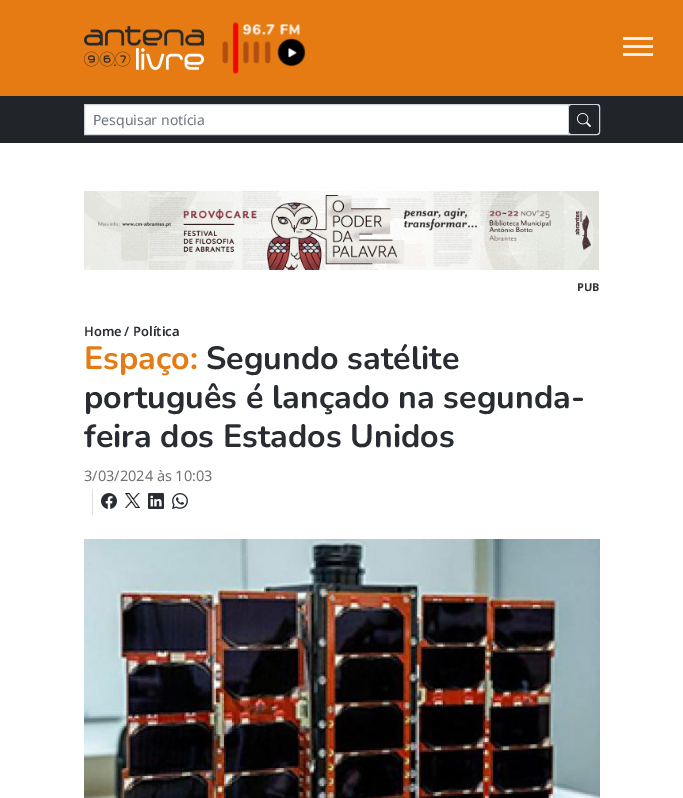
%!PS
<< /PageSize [683 798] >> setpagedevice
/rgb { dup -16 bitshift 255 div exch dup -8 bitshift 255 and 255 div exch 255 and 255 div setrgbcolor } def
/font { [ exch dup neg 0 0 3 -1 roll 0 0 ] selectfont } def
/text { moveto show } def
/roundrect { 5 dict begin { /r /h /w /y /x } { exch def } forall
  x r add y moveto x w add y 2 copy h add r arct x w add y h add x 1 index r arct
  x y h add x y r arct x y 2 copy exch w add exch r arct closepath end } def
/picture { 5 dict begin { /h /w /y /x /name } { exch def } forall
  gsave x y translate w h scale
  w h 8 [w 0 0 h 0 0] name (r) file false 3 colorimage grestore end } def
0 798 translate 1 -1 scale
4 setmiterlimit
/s1 { /NotoSans-Regular 14 font 16#6C757D rgb } def
/s2 { /NotoSans-Bold 11 font 16#30353A rgb } def
/s3 { /NotoSans-SemiBold 13 font 16#292D33 rgb } def
/s4 { /NotoSans-SemiBold 13 font 16#30353A rgb } def
/s5 { /Nunito-Bold 32.25 font 16#E67B13 rgb } def
/s6 { /Nunito-Bold 32.25 font 16#292D33 rgb } def
/s7 { /NotoSans-Regular 14.5 font 16#717272 rgb } def
16#FFFFFF rgb
0 0 683 798 rectfill
16#E67B13 rgb
0 0 683 96 rectfill
(pic1.raw) 84 26 120 44 picture
(pic2.raw) 222 22 84 52 picture
16#EEEEEE rgb
623 37 30 3 rectfill
623 45 30 3 rectfill
623 53 30 3 rectfill
16#212529 rgb
0 96 683 47 rectfill
16#E9ECEF rgb
568.5 104.5 moveto 597 104.5 lineto 598.5 104.5 599.5 105.5 599.5 107 curveto 599.5 132 lineto 599.5 133.5 598.5 134.5 597 134.5 curveto 568.5 134.5 lineto closepath gsave fill grestore
16#CED4DA rgb
stroke
16#FFFFFF rgb
84.5 104.5 moveto 568.5 104.5 lineto 568.5 134.5 lineto 84.5 134.5 lineto closepath gsave fill grestore
16#CED4DA rgb
stroke
s1
(Pesquisar notícia) 93 125 text
16#212529 rgb
569 105 30 29 3 roundrect fill
(pic3.raw) 577 113 14 14 picture
(pic4.raw) 84 191 515 79 picture
s2
(PUB) 577 291 text
s3
(Home) 84 336 text
s4
(/) 124 336 text
s3
(Política) 133 336 text
s5
(Espaço:) 84 369 text
s6
(Segundo satélite) 206 369 text
(português é lançado na segunda-) 84 408 text
(feira dos Estados Unidos) 84 447 text
s7
(3/03/2024 às 10:03) 84 481 text
16#DEE2E6 rgb
92 489 1 26 rectfill
(pic5.raw) 101 493 16 16 picture
(pic6.raw) 125 493 15 15 picture
(pic7.raw) 148 493 16 16 picture
(pic8.raw) 172 493 16 16 picture
(pic9.raw) 84 539 516 259 picture
showpage
